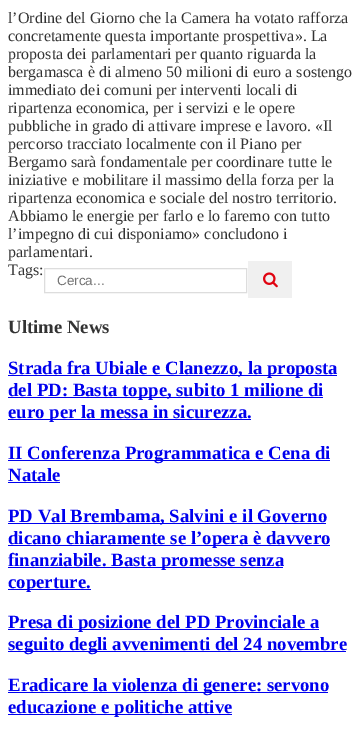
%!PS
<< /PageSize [364 745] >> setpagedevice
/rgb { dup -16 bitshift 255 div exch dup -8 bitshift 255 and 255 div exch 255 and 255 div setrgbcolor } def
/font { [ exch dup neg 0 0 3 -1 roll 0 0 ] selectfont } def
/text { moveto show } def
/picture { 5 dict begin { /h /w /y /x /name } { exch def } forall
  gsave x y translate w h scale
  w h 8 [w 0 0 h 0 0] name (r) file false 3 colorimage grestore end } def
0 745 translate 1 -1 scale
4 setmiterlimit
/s1 { /LiberationSerif-Regular 16 font 16#333333 rgb } def
/s2 { /LiberationSans-Regular 13.5 font 16#757575 rgb } def
/s3 { /LiberationSerif-Bold 18.75 font 16#333333 rgb } def
/s4 { /LiberationSerif-Bold 18.75 font 16#0000EE rgb } def
16#FFFFFF rgb
0 0 364 745 rectfill
s1
(l’Ordine del Giorno che la Camera ha votato rafforza) 8 23 text
(concretamente questa importante prospettiva». La) 8 41 text
(proposta dei parlamentari per quanto riguarda la) 8 59 text
(bergamasca è di almeno 50 milioni di euro a sostengo) 8 77 text
(immediato dei comuni per interventi locali di) 8 95 text
(ripartenza economica, per i servizi e le opere) 8 113 text
(pubbliche in grado di attivare imprese e lavoro. «Il) 8 131 text
(percorso tracciato localmente con il Piano per) 8 149 text
(Bergamo sarà fondamentale per coordinare tutte le) 8 167 text
(iniziative e mobilitare il massimo della forza per la) 8 185 text
(ripartenza economica e sociale del nostro territorio.) 8 203 text
(Abbiamo le energie per farlo e lo faremo con tutto) 8 221 text
(l’impegno di cui disponiamo» concludono i) 8 239 text
(parlamentari.) 8 257 text
(Tags:) 8 275 text
16#DDDDDD rgb
44.5 268.5 202 24 rectstroke
s2
(Cerca...) 57 285 text
16#F0F0F0 rgb
248 261 44 37 rectfill
(pic1.raw) 263 272 15 16 picture
s3
(Ultime News) 8 333 text
16#0000EE rgb
8 375 329 1 rectfill
(Strada fra Ubiale e Clanezzo, la proposta) 8 374 text
8 397 315 1 rectfill
(del PD: Basta toppe, subito 1 milione di) 8 396 text
8 419 243 1 rectfill
(euro per la messa in sicurezza.) 8 418 text
8 460 322 1 rectfill
(II Conferenza Programmatica e Cena di) 8 459 text
(Natale) 8 481 text
8 482 52 1 rectfill
8 523 318 1 rectfill
(PD Val Brembama, Salvini e il Governo) 8 522 text
8 545 322 1 rectfill
(dicano chiaramente se l’opera è davvero) 8 544 text
8 567 275 1 rectfill
(finanziabile. Basta promesse senza) 8 566 text
8 589 83 1 rectfill
(coperture.) 8 588 text
8 629 311 1 rectfill
(Presa di posizione del PD Provinciale a) 8 628 text
8 651 338 1 rectfill
(seguito degli avvenimenti del 24 novembre) 8 650 text
8 692 320 1 rectfill
(Eradicare la violenza di genere: servono) 8 691 text
8 714 224 1 rectfill
(educazione e politiche attive) 8 713 text
showpage
